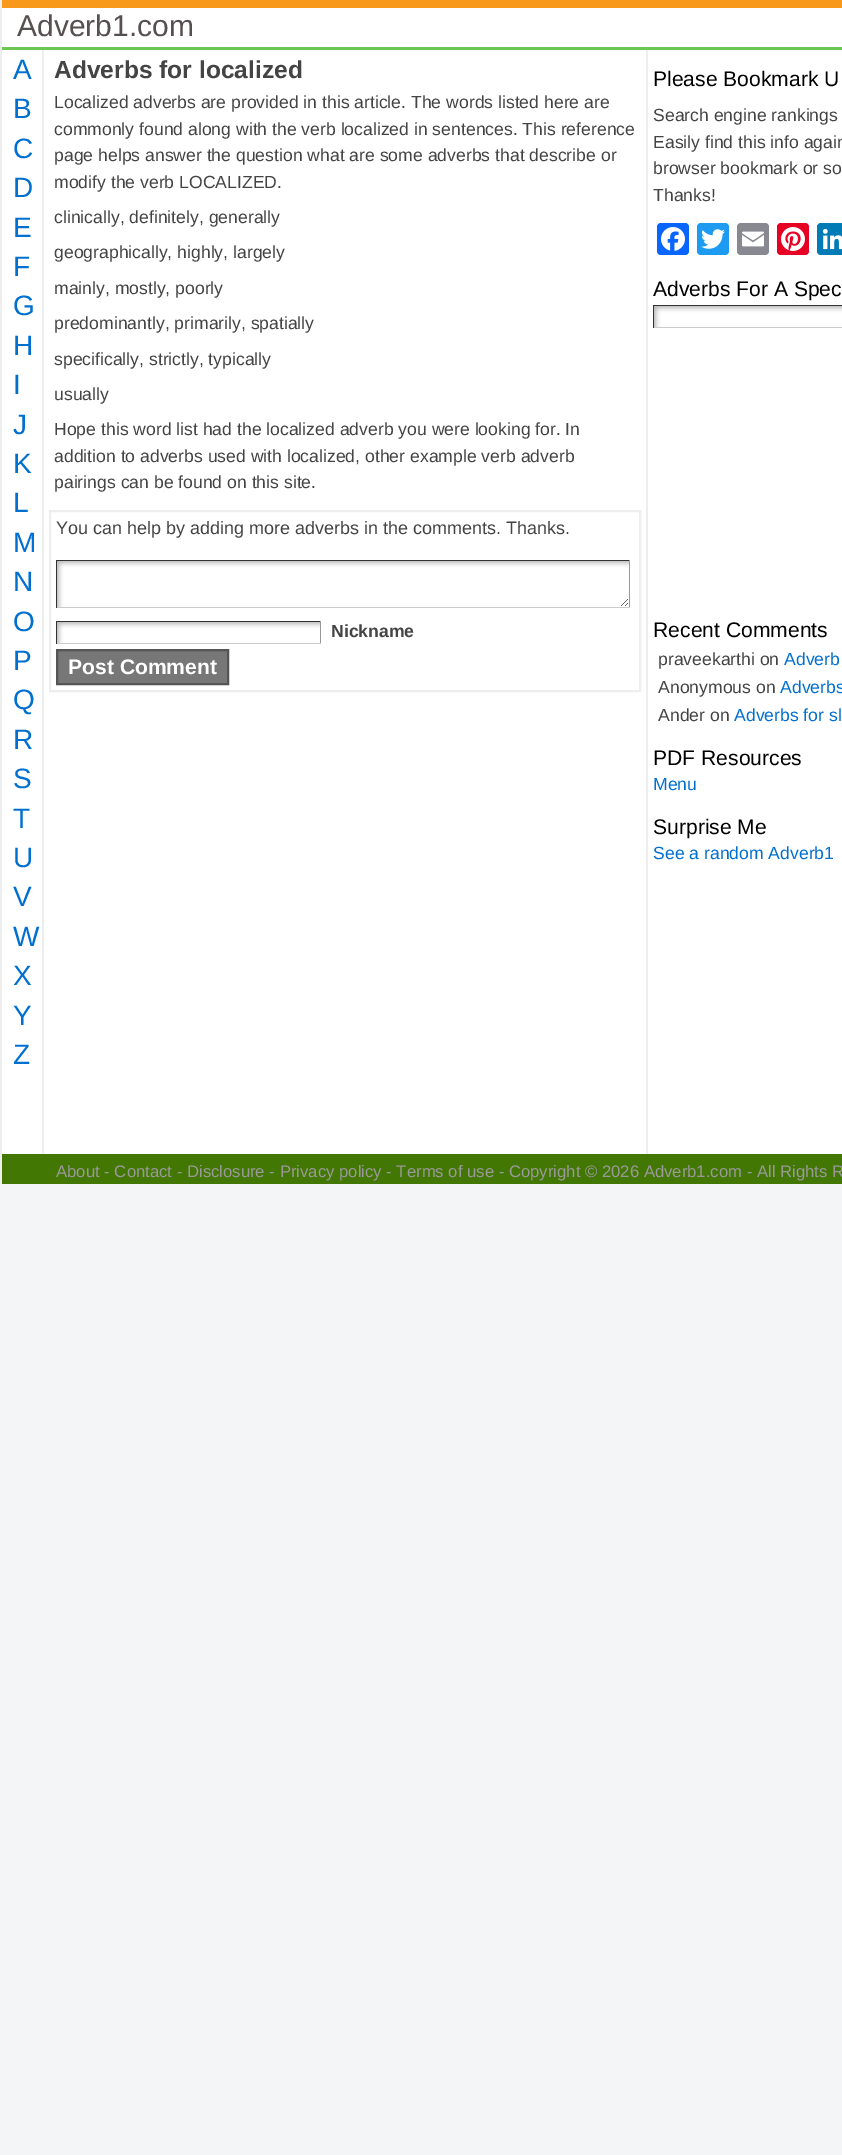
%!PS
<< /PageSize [842 2155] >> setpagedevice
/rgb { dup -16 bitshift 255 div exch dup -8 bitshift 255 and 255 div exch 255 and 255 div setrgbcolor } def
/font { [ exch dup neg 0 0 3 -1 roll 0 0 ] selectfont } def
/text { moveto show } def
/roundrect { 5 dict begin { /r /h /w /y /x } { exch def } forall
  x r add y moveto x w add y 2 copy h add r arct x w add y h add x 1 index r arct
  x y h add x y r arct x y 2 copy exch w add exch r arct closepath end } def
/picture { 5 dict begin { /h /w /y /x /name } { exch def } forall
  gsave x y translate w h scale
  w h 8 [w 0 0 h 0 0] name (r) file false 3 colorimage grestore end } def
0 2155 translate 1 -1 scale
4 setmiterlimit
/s1 { /LiberationSans-Regular 30 font 16#575050 rgb } def
/s2 { /LiberationSans-Regular 28 font 16#0070D0 rgb } def
/s3 { /LiberationSans-Bold 24.6 font 16#444444 rgb } def
/s4 { /LiberationSans-Regular 17.6 font 16#444444 rgb } def
/s5 { /LiberationSans-Regular 18 font 16#444444 rgb } def
/s6 { /LiberationSans-Bold 17.6 font 16#444444 rgb } def
/s7 { /LiberationSans-Bold 21.1 font 16#FFFFFF rgb } def
/s8 { /LiberationSans-Regular 21.1 font 16#000000 rgb } def
/s9 { /LiberationSans-Regular 17.6 font 16#0070D0 rgb } def
/s10 { /LiberationSans-Regular 16.7 font 16#999999 rgb } def
16#F4F5F6 rgb
0 0 842 2155 rectfill
16#FFFFFF rgb
2 8 840 1146 rectfill
16#EEEEEE rgb
0 0 2 1184 rectfill
16#F8991C rgb
2 0 840 8 rectfill
s1
(Adverb1.com) 17 36 text
16#6DC654 rgb
2 47 840 3 rectfill
s2
(A) 13 79 text
(B) 13 118 text
(C) 13 158 text
(D) 13 197 text
(E) 13 237 text
(F) 13 276 text
(G) 13 315 text
(H) 13 355 text
(I) 13 394 text
(J) 13 434 text
(K) 13 473 text
(L) 13 512 text
(M) 13 552 text
(N) 13 591 text
(O) 13 631 text
(P) 13 670 text
(Q) 13 709 text
(R) 13 749 text
(S) 13 788 text
(T) 13 828 text
(U) 13 867 text
(V) 13 906 text
(W) 13 946 text
(X) 13 985 text
(Y) 13 1025 text
(Z) 13 1064 text
16#EEEEEE rgb
646 50 2 1104 rectfill
42 50 2 1104 rectfill
s3
(Adverbs for localized) 54 78 text
s4
(Localized adverbs are provided in this article. The words listed here are) 54 108 text
(commonly found along with the verb localized in sentences. This reference) 54 135 text
(page helps answer the question what are some adverbs that describe or) 54 161 text
(modify the verb LOCALIZED.) 54 188 text
(clinically, definitely, generally) 54 223 text
(geographically, highly, largely) 54 258 text
(mainly, mostly, poorly) 54 294 text
(predominantly, primarily, spatially) 54 329 text
(specifically, strictly, typically) 54 365 text
(usually) 54 400 text
(Hope this word list had the localized adverb you were looking for. In) 54 435 text
(addition to adverbs used with localized, other example verb adverb) 54 462 text
(pairings can be found on this site.) 54 488 text
16#EEEEEE rgb
2 setlinewidth
50 511 590 180 rectstroke
s5
(You can help by adding more adverbs in the comments. Thanks.) 56 534 text
(pic1.raw) 57 561 572 46 picture
16#333333 rgb
56 560 574 1 rectfill
16#999999 rgb
629 560 1 48 rectfill
16#CCCCCC rgb
56 607 574 1 rectfill
16#333333 rgb
56 560 1 48 rectfill
(pic2.raw) 57 622 263 21 picture
56 621 265 1 rectfill
16#999999 rgb
320 621 1 23 rectfill
16#CCCCCC rgb
56 643 265 1 rectfill
16#333333 rgb
56 621 1 23 rectfill
s6
(Nickname) 331 637 text
16#777777 rgb
57 650 moveto 228 650 lineto 228 684 lineto 57 684 lineto closepath gsave fill grestore
16#555555 rgb
stroke
s7
(Post Comment) 68 674 text
s8
(Please Bookmark U) 653 86 text
s4
(Search engine rankings) 653 121 text
(Easily find this info again) 653 148 text
(browser bookmark or so) 653 174 text
(Thanks!) 653 201 text
16#0866FF rgb
657 223 32 32 4 roundrect fill
(pic3.raw) 661 227 24 24 picture
16#1D9BF0 rgb
697 223 32 32 4 roundrect fill
(pic4.raw) 701 229 24 20 picture
16#888990 rgb
737 223 32 32 4 roundrect fill
(pic5.raw) 742 231 22 16 picture
16#E60023 rgb
777 223 32 32 4 roundrect fill
(pic6.raw) 781 227 24 24 picture
16#007BB5 rgb
817 223 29 32 4 roundrect fill
(pic7.raw) 822 228 20 22 picture
s8
(Adverbs For A Spec) 653 296 text
(pic8.raw) 654 306 188 21 picture
16#333333 rgb
653 305 189 1 rectfill
16#CCCCCC rgb
653 327 189 1 rectfill
16#333333 rgb
653 305 1 23 rectfill
s8
(Recent Comments) 653 637 text
s4
(praveekarthi on) 658 665 text
s9
(Adverb) 784 665 text
s4
(Anonymous on) 658 693 text
s9
(Adverbs) 780 693 text
s4
(Ander on) 658 721 text
s9
(Adverbs for sl) 734 721 text
s8
(PDF Resources) 653 765 text
s9
(Menu) 653 790 text
s8
(Surprise Me) 653 834 text
s9
(See a random Adverb1) 653 859 text
16#437704 rgb
2 1154 840 30 rectfill
s10
(About - Contact - Disclosure - Privacy policy - Terms of use - Copyright © 2026 Adverb1.com - All Rights R) 56 1177 text
showpage
